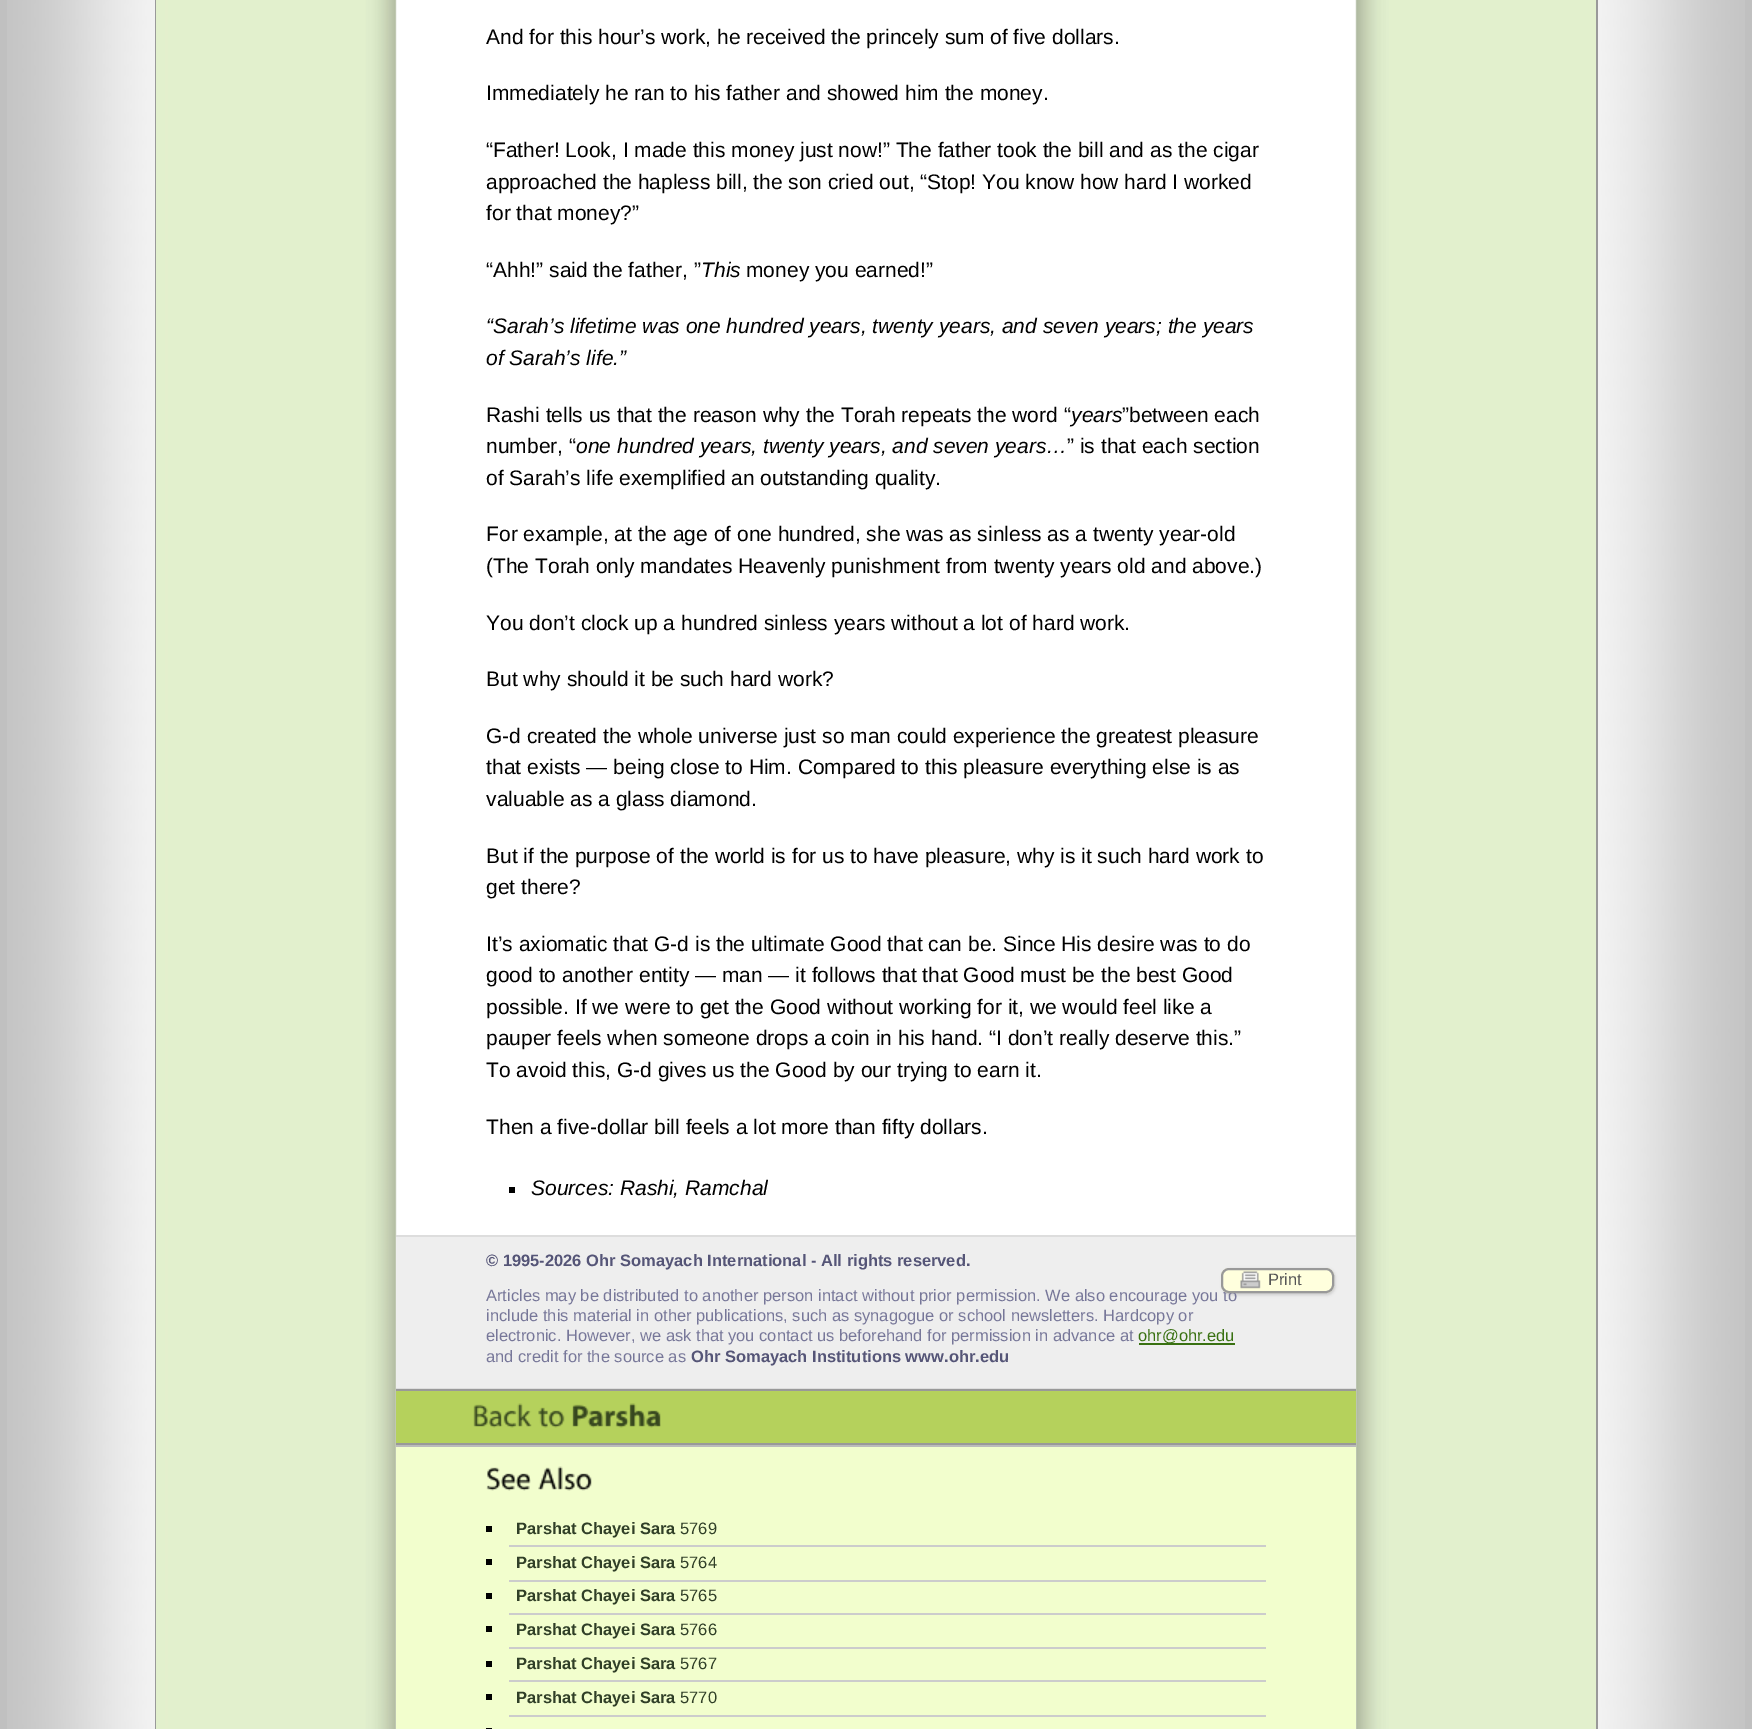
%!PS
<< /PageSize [1752 1729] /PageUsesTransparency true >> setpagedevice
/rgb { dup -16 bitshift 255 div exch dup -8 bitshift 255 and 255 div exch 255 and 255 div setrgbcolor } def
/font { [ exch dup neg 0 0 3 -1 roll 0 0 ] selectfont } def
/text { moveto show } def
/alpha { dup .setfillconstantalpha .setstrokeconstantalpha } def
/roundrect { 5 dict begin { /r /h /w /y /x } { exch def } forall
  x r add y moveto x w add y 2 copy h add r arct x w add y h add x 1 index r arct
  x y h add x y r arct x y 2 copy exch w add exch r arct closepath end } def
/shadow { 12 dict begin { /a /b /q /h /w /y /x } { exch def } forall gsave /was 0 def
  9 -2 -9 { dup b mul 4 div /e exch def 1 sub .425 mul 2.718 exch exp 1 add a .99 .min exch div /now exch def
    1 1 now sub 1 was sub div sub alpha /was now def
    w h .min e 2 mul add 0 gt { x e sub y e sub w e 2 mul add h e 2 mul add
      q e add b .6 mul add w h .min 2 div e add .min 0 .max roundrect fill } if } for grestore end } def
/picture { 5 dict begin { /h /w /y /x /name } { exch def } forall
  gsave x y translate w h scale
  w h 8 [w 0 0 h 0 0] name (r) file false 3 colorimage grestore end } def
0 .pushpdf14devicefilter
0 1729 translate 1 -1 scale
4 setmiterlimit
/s1 { /LiberationSans-Regular 21 font 16#000000 rgb } def
/s2 { /LiberationSans-Italic 21 font 16#000000 rgb } def
/s3 { /LiberationSans-Regular 16.5 font 16#777799 rgb } def
/s4 { /LiberationSans-Regular 16.5 font 16#555555 rgb } def
/s5 { /LiberationSans-Bold 16.5 font 16#555577 rgb } def
/s6 { /LiberationSans-Regular 16.5 font 16#397111 rgb } def
/s7 { /LiberationSans-Bold 16.5 font 16#303F27 rgb } def
/s8 { /LiberationSans-Regular 16.5 font 16#303F27 rgb } def
16#C0C0C0 rgb
0 0 1752 1729 rectfill
(pic1.raw) 7 0 1738 1729 picture
16#999999 rgb
1596 0 2 1729 rectfill
155 0 1 1729 rectfill
(pic2.raw) 156 0 1440 1729 picture
s1
(And for this hour’s work, he received the princely sum of five dollars.) 486 44 text
(Immediately he ran to his father and showed him the money.) 486 100 text
(“Father! Look, I made this money just now!” The father took the bill and as the cigar) 486 157 text
(approached the hapless bill, the son cried out, “Stop! You know how hard I worked) 486 189 text
(for that money?”) 486 220 text
(“Ahh!” said the father, ”) 486 277 text
s2
(This) 701 277 text
s1
(money you earned!”) 746 277 text
s2
(“Sarah’s lifetime was one hundred years, twenty years, and seven years; the years) 486 333 text
(of Sarah’s life.”) 486 365 text
s1
(Rashi tells us that the reason why the Torah repeats the word “) 486 422 text
s2
(years) 1071 422 text
s1
(”between each) 1122 422 text
(number, “) 486 453 text
s2
(one hundred years, twenty years, and seven years…) 576 453 text
s1
(” is that each section) 1067 453 text
(of Sarah’s life exemplified an outstanding quality.) 486 485 text
(For example, at the age of one hundred, she was as sinless as a twenty year-old) 486 541 text
(\(The Torah only mandates Heavenly punishment from twenty years old and above.\)) 486 573 text
(You don’t clock up a hundred sinless years without a lot of hard work.) 486 630 text
(But why should it be such hard work?) 486 686 text
(G-d created the whole universe just so man could experience the greatest pleasure) 486 743 text
(that exists — being close to Him. Compared to this pleasure everything else is as) 486 774 text
(valuable as a glass diamond.) 486 806 text
(But if the purpose of the world is for us to have pleasure, why is it such hard work to) 486 863 text
(get there?) 486 894 text
(It’s axiomatic that G-d is the ultimate Good that can be. Since His desire was to do) 486 951 text
(good to another entity — man — it follows that that Good must be the best Good) 486 982 text
(possible. If we were to get the Good without working for it, we would feel like a) 486 1014 text
(pauper feels when someone drops a coin in his hand. “I don’t really deserve this.”) 486 1045 text
(To avoid this, G-d gives us the Good by our trying to earn it.) 486 1077 text
(Then a five-dollar bill feels a lot more than fifty dollars.) 486 1134 text
509 1187 6 6 rectfill
s2
(Sources: Rashi, Ramchal) 531 1195 text
16#EEEEEE rgb
396 1237 960 151 rectfill
16#CCCCCC rgb
1223 1269 112 26 8 1.5 1 shadow
s3
(Articles may be distributed to another person intact without prior permission. We also encourage you to) 486 1301 text
16#FFFFDD rgb
1221 1268 113 25 8 roundrect fill
(pic3.raw) 1240 1271 21 18 picture
16#999999 rgb
2 setlinewidth
1222 1269 111 23 7 roundrect stroke
s4
(Print) 1268 1285 text
16#DDDDDD rgb
396 1235 960 2 rectfill
396 1388 960 1 rectfill
s5
(© 1995-2026 Ohr Somayach International - All rights reserved.) 486 1266 text
s3
(include this material in other publications, such as synagogue or school newsletters. Hardcopy or) 486 1321 text
(electronic. However, we ask that you contact us beforehand for permission in advance at) 486 1341 text
16#397111 rgb
1139 1343 96 2 rectfill
(ohr@ohr.edu) 1138 1341 text
s3
(and credit for the source as) 486 1362 text
s5
(Ohr Somayach Institutions www.ohr.edu) 691 1362 text
16#B5D15C rgb
396 1391 960 52 rectfill
16#999999 rgb
396 1389 960 2 rectfill
396 1443 960 2 rectfill
(pic4.raw) 473 1403 59 25 picture
(pic5.raw) 538 1407 27 21 picture
(pic6.raw) 572 1403 89 25 picture
16#F2FECD rgb
396 1447 960 282 rectfill
16#BBBBBB rgb
396 1445 960 2 rectfill
(pic7.raw) 486 1467 45 24 picture
(pic8.raw) 538 1466 54 25 picture
16#CCCCCC rgb
509 1545 757 2 rectfill
16#000000 rgb
486 1526 6 6 rectfill
s7
(Parshat Chayei Sara) 516 1534 text
s8
(5769) 680 1534 text
16#CCCCCC rgb
509 1580 757 2 rectfill
16#000000 rgb
486 1559 6 6 rectfill
s7
(Parshat Chayei Sara) 516 1568 text
s8
(5764) 680 1568 text
16#CCCCCC rgb
509 1613 757 2 rectfill
16#000000 rgb
486 1593 6 6 rectfill
s7
(Parshat Chayei Sara) 516 1601 text
s8
(5765) 680 1601 text
16#CCCCCC rgb
509 1647 757 2 rectfill
16#000000 rgb
486 1626 6 6 rectfill
s7
(Parshat Chayei Sara) 516 1635 text
s8
(5766) 680 1635 text
16#CCCCCC rgb
509 1680 757 2 rectfill
16#000000 rgb
486 1661 6 6 rectfill
s7
(Parshat Chayei Sara) 516 1669 text
s8
(5767) 680 1669 text
16#CCCCCC rgb
509 1715 757 2 rectfill
16#000000 rgb
486 1694 6 6 rectfill
s7
(Parshat Chayei Sara) 516 1703 text
s8
(5770) 680 1703 text
16#000000 rgb
486 1728 6 1 rectfill
.poppdf14devicefilter showpage
